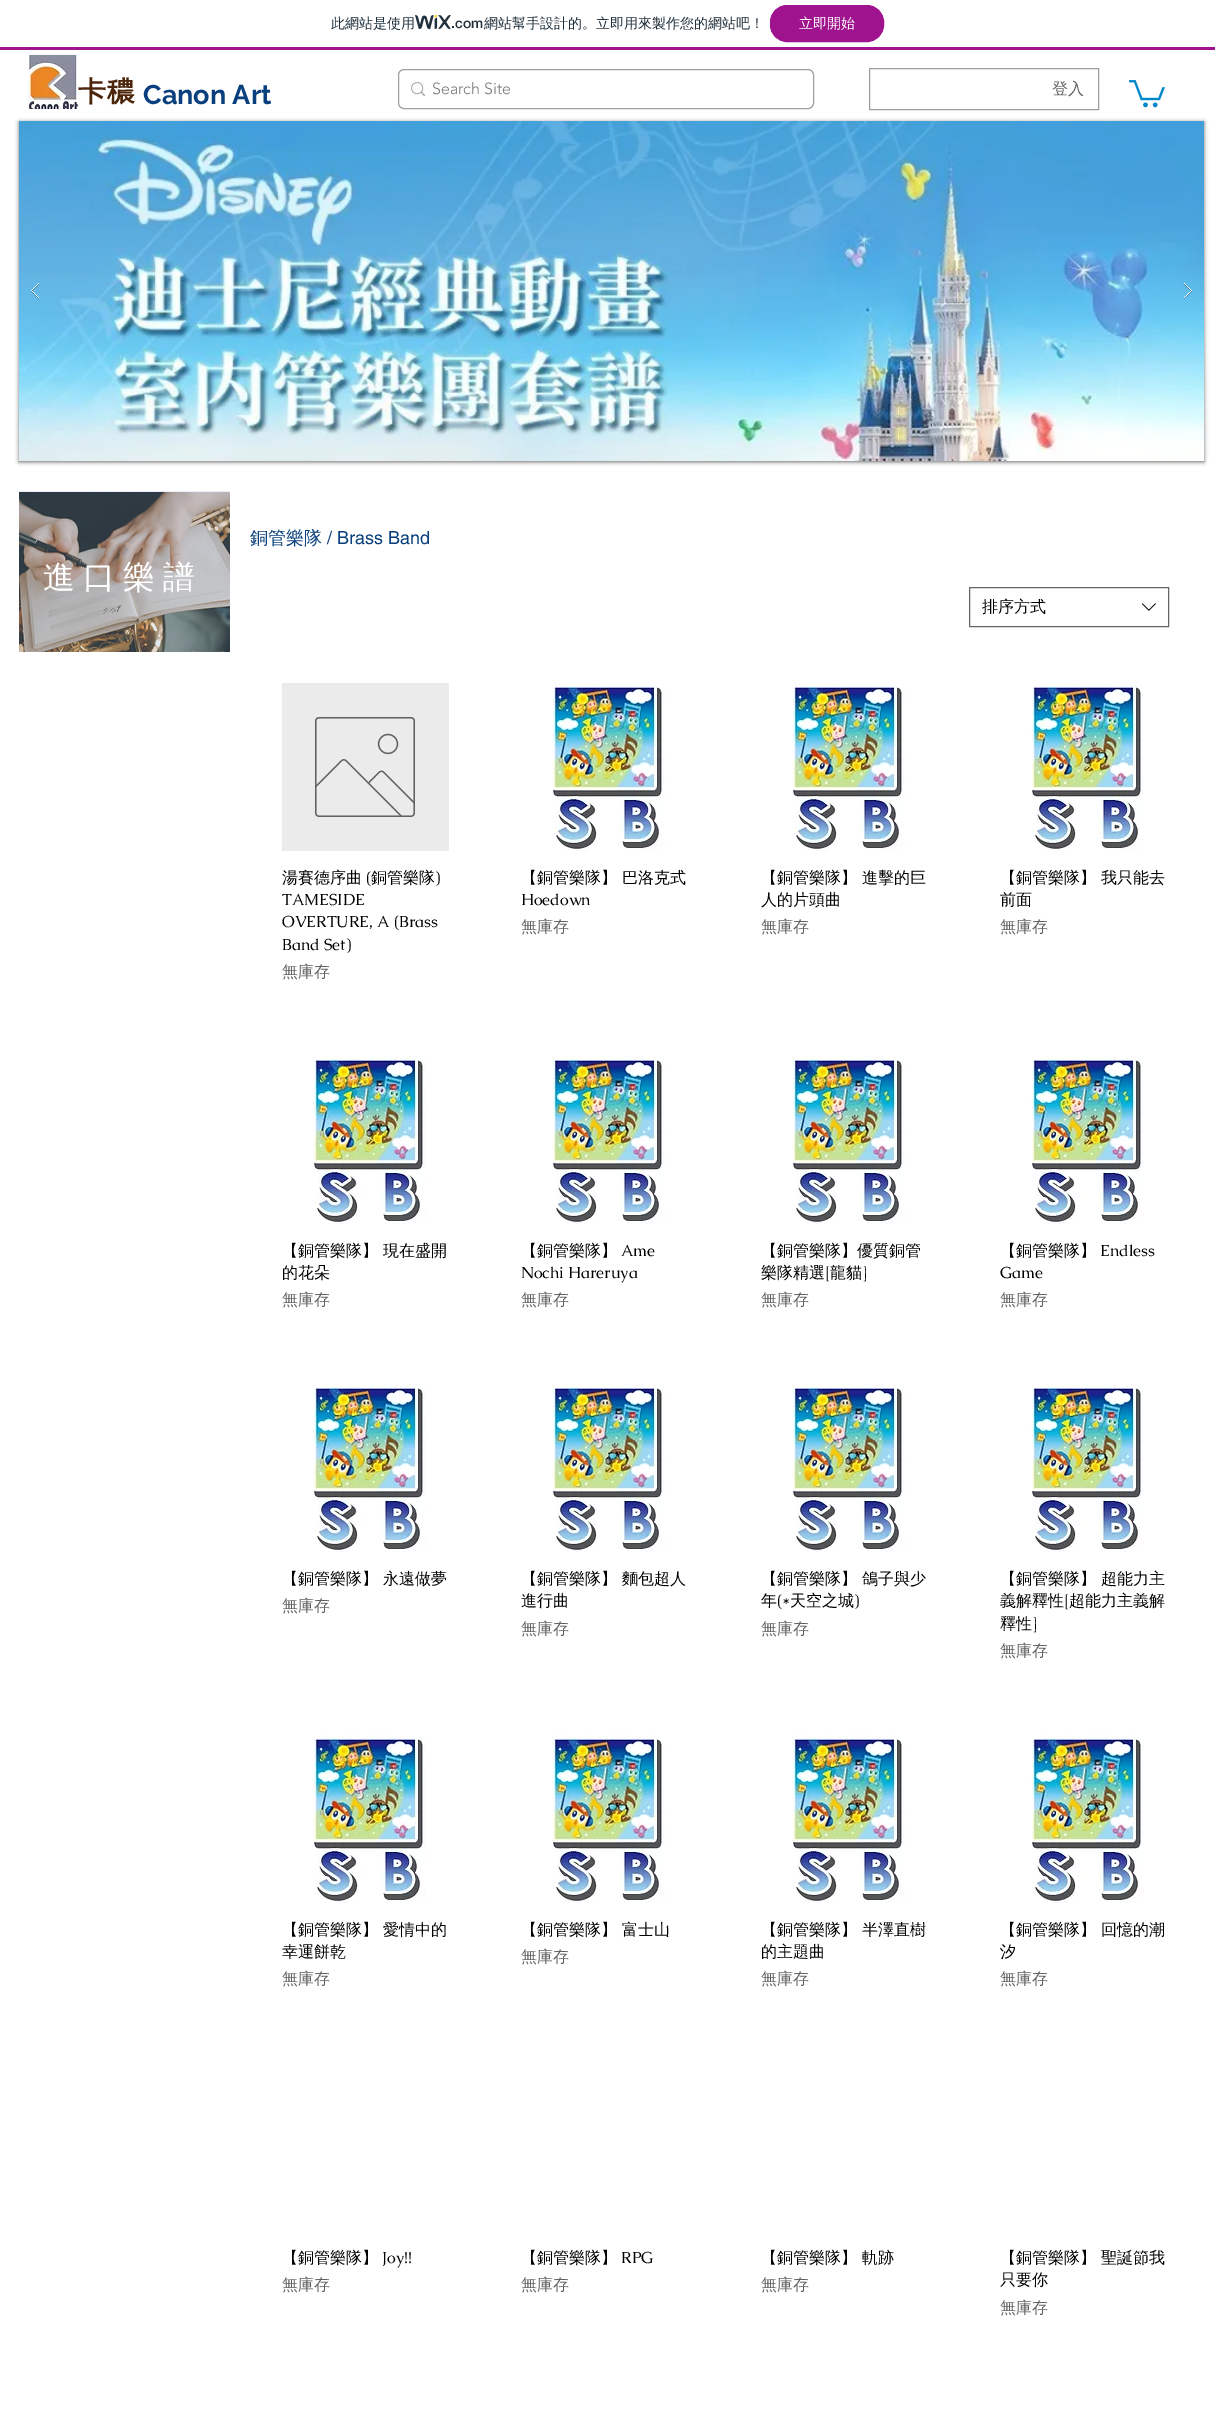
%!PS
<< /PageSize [1215 2421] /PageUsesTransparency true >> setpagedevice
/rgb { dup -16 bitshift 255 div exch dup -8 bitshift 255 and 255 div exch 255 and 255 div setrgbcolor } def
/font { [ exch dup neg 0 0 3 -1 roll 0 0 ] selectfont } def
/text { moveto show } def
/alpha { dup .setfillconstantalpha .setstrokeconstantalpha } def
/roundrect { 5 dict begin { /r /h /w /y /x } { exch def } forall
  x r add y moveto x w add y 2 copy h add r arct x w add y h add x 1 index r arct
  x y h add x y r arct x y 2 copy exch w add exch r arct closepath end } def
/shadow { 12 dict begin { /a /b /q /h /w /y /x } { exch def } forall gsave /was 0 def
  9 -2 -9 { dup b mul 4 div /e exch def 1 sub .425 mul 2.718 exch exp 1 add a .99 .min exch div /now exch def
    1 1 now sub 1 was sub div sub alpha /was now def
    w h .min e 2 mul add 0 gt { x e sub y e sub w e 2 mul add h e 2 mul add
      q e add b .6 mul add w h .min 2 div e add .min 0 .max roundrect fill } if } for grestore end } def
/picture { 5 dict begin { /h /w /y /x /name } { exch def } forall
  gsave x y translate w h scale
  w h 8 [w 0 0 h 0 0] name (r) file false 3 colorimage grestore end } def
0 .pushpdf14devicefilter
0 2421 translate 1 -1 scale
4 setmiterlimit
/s1 { /WenQuanYiZenHei-Medium 14 font 16#20303C rgb } def
/s2 { /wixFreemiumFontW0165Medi-Medium 14 font 16#20303C rgb } def
/s3 { /WenQuanYiZenHei-Medium 14 font 16#FFFFFF rgb } def
/s4 { /Raleway-Bold 27 font 16#093F7C rgb } def
/s5 { /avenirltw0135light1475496-Light 16 font 16#787878 rgb } def
/s6 { /WenQuanYiZenHei-Medium 16 font 16#606060 rgb } def
/s7 { /WenQuanYiZenHei-Medium 18 font 16#093F7C rgb } def
/s8 { /helvetica-Regular 18 font 16#093F7C rgb } def
/s9 { /WenQuanYiZenHei-Medium 16 font 16#000000 rgb } def
/s10 { /Caudex-Regular 16 font 16#000000 rgb } def
16#FFFFFF rgb
0 0 1215 2421 rectfill
16#E6EFF9 rgb
19 491 211 1 rectfill
16#A0138E rgb
0 47 1215 3 rectfill
s1
(此網站是使用) 331 28 text
(pic1.raw) 415 15 36 15 picture
s2
(.com) 451 28 text
s1
(網站幫手設計的。立即用來製作您的網站吧！) 484 28 text
16#A0138E rgb
770.5 5.5 113 36 16.5 roundrect gsave fill grestore
stroke
s3
(立即開始) 799 28 text
(pic2.raw) 28 55 50 54 picture
/WenQuanYiZenHei-Bold 28 font
16#4C250B rgb
78 101 moveto 1 0 (卡穠) ashow
s4
(Canon Art) 143 104 text
16#A0A0A0 rgb
398.5 69.5 415 39 5.5 roundrect stroke
(pic3.raw) 411 82 14 14 picture
s5
(Search Site) 432 94 text
16#9E9E9E rgb
869.5 68.5 229 41 rectstroke
s6
(登入) 1052 94 text
(pic4.raw) 1129 80 36 28 picture
(pic5.raw) 19 492 211 160 picture
s7
(銅管樂隊) 250 544 text
s8
(/ Brass Band) 327 544 text
16#666666 rgb
969.5 587.5 199 39 rectstroke
s9
(排序方式) 982 612 text
(pic6.raw) 1141 603 15 8 picture
16#EBEBEB rgb
282 683 167 168 rectfill
(pic7.raw) 315 717 100 100 picture
s9
(湯賽德序曲) 282 883 text
s10
(\() 366 883 text
s9
(銅管樂隊) 371 883 text
s10
(\)) 435 883 text
(TAMESIDE) 282 905 text
(OVERTURE, A \(Brass) 282 927 text
(Band Set\)) 282 950 text
s6
(無庫存) 282 977 text
(pic8.raw) 552 683 113 168 picture
s9
(【銅管樂隊】 巴洛克式) 521 883 text
s10
(Hoedown) 521 905 text
s6
(無庫存) 521 932 text
(pic8.raw) 792 683 113 168 picture
s9
(【銅管樂隊】 進擊的巨) 761 883 text
(人的片頭曲) 761 905 text
s6
(無庫存) 761 932 text
(pic8.raw) 1031 683 113 168 picture
s9
(【銅管樂隊】 我只能去) 1000 883 text
(前面) 1000 905 text
s6
(無庫存) 1000 932 text
(pic8.raw) 313 1056 113 168 picture
s9
(【銅管樂隊】 現在盛開) 282 1256 text
(的花朵) 282 1278 text
s6
(無庫存) 282 1305 text
(pic8.raw) 552 1056 113 168 picture
s9
(【銅管樂隊】) 521 1256 text
s10
(Ame) 621 1256 text
(Nochi Hareruya) 521 1278 text
s6
(無庫存) 521 1305 text
(pic8.raw) 792 1056 113 168 picture
s9
(【銅管樂隊】優質銅管) 761 1256 text
(樂隊精選) 761 1278 text
s10
([) 825 1278 text
s9
(龍貓) 830 1278 text
s10
(]) 862 1278 text
s6
(無庫存) 761 1305 text
(pic8.raw) 1031 1056 113 168 picture
s9
(【銅管樂隊】) 1000 1256 text
s10
(Endless) 1100 1256 text
(Game) 1000 1278 text
s6
(無庫存) 1000 1305 text
(pic8.raw) 313 1384 113 168 picture
s9
(【銅管樂隊】 永遠做夢) 282 1584 text
s6
(無庫存) 282 1611 text
(pic8.raw) 552 1384 113 168 picture
s9
(【銅管樂隊】 麵包超人) 521 1584 text
(進行曲) 521 1606 text
s6
(無庫存) 521 1634 text
(pic8.raw) 792 1384 113 168 picture
s9
(【銅管樂隊】 鴿子與少) 761 1584 text
(年) 761 1606 text
s10
(\(*) 777 1606 text
s9
(天空之城) 790 1606 text
s10
(\)) 854 1606 text
s6
(無庫存) 761 1634 text
(pic8.raw) 1031 1384 113 168 picture
s9
(【銅管樂隊】 超能力主) 1000 1584 text
(義解釋性) 1000 1606 text
s10
([) 1064 1606 text
s9
(超能力主義解) 1069 1606 text
(釋性) 1000 1629 text
s10
(]) 1032 1629 text
s6
(無庫存) 1000 1656 text
(pic8.raw) 313 1735 113 168 picture
s9
(【銅管樂隊】 愛情中的) 282 1935 text
(幸運餅乾) 282 1957 text
s6
(無庫存) 282 1984 text
(pic8.raw) 552 1735 113 168 picture
s9
(【銅管樂隊】 富士山) 521 1935 text
s6
(無庫存) 521 1962 text
(pic8.raw) 792 1735 113 168 picture
s9
(【銅管樂隊】 半澤直樹) 761 1935 text
(的主題曲) 761 1957 text
s6
(無庫存) 761 1984 text
(pic8.raw) 1031 1735 113 168 picture
s9
(【銅管樂隊】 回憶的潮) 1000 1935 text
(汐) 1000 1957 text
s6
(無庫存) 1000 1984 text
s9
(【銅管樂隊】) 282 2263 text
s10
(Joy!!) 382 2263 text
s6
(無庫存) 282 2290 text
s9
(【銅管樂隊】) 521 2263 text
s10
(RPG) 621 2263 text
s6
(無庫存) 521 2290 text
s9
(【銅管樂隊】 軌跡) 761 2263 text
s6
(無庫存) 761 2290 text
s9
(【銅管樂隊】 聖誕節我) 1000 2263 text
(只要你) 1000 2285 text
s6
(無庫存) 1000 2313 text
16#000000 rgb
19 122 1185 340 0 2 0.6 shadow
(pic9.raw) 19 121 1185 340 picture
(pic10.raw) 31 283 8 16 picture
(pic11.raw) 1184 283 8 16 picture
(pic12.raw) 121 544 7 12 picture
/WenQuanYiZenHei-Medium 32 font
16#FFFFFF rgb
43 588 moveto 8 0 (進口樂譜) ashow
.poppdf14devicefilter showpage
